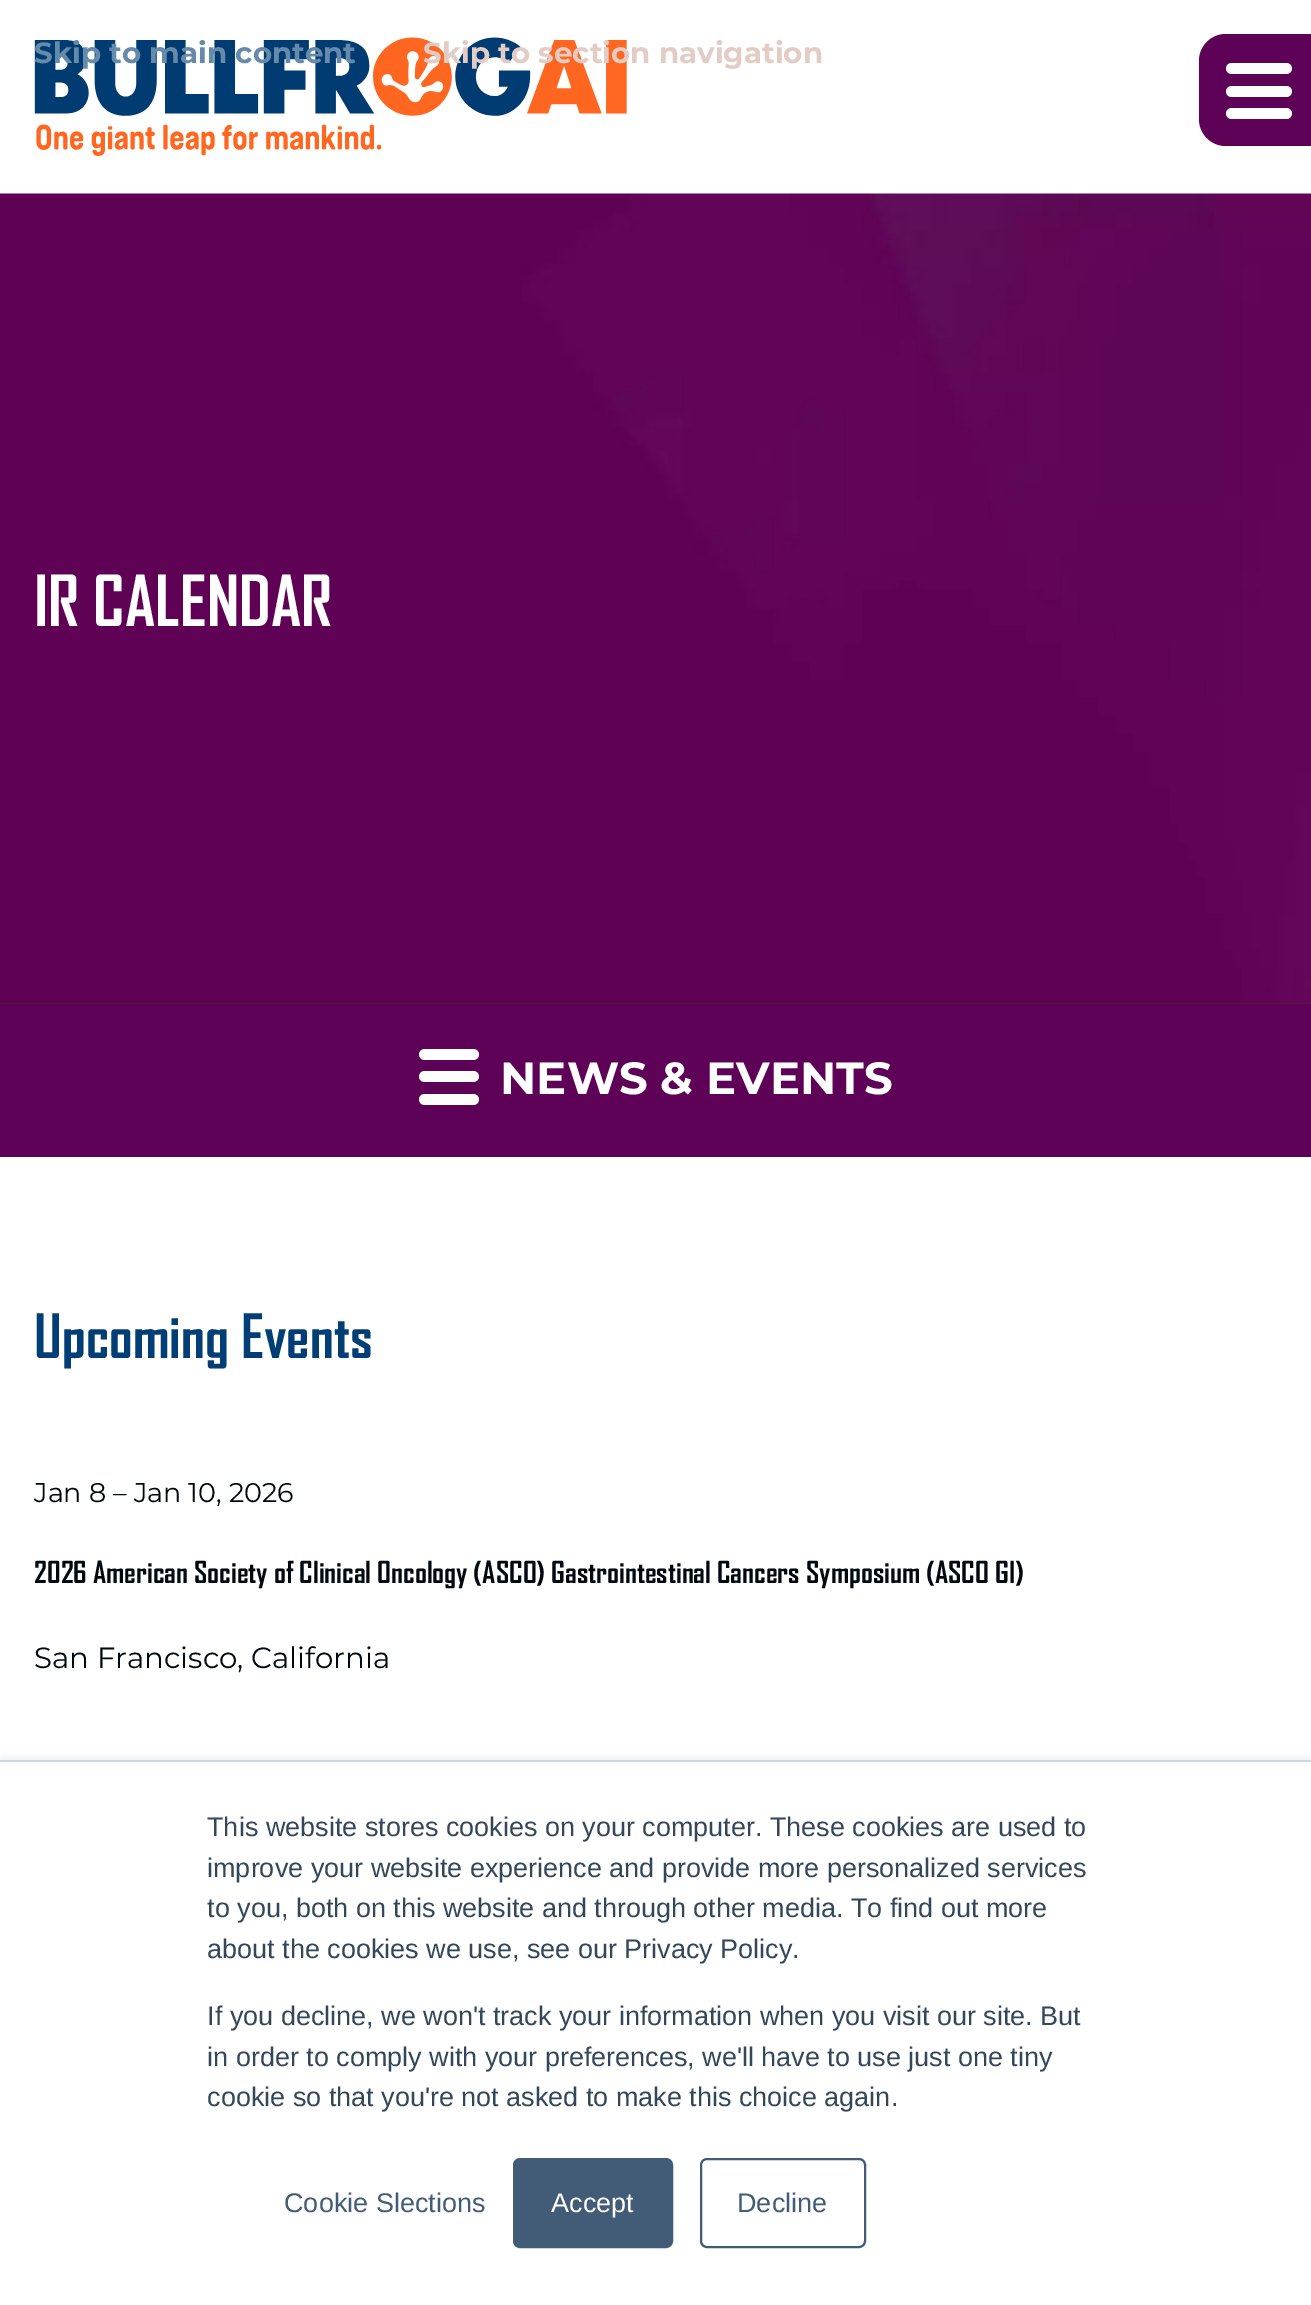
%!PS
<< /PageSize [1311 2305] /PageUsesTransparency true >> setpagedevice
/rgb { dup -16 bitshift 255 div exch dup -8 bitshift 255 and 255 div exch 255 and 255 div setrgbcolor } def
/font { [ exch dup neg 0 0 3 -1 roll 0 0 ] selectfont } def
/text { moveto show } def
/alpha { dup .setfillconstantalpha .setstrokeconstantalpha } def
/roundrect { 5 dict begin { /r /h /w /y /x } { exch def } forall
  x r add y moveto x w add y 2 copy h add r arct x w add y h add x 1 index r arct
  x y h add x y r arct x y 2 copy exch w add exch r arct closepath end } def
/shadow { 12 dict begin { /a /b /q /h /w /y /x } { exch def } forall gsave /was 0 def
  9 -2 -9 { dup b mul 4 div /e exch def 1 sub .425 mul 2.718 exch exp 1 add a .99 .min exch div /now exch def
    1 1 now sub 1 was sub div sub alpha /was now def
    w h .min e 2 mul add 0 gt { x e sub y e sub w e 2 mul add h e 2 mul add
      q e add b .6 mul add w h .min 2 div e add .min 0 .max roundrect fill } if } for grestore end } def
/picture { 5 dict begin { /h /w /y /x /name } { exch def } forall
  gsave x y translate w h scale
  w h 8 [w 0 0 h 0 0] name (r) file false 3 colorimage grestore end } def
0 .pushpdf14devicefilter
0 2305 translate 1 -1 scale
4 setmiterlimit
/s1 { /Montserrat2-Thin 29.25 font 16#668AAA rgb } def
/s2 { /Montserrat2-Thin 29.25 font 16#E2CCC5 rgb } def
/s3 { /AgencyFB-Bold 67.5 font 16#FFFFFF rgb } def
/s4 { /Montserrat2-Thin 45 font 16#FFFFFF rgb } def
/s5 { /AgencyFB-Bold 58.5 font 16#003E75 rgb } def
/s6 { /Montserrat-Thin 27 font 16#00080F rgb } def
/s7 { /AgencyFB-Bold 29.25 font 16#00080F rgb } def
/s8 { /Montserrat-Thin 29.25 font 16#00080F rgb } def
/s9 { /LiberationSans-Regular 27 font 16#33475B rgb } def
/s10 { /LiberationSans-Regular 27 font 16#425B76 rgb } def
/s11 { /LiberationSans-Regular 27 font 16#FFFFFF rgb } def
16#FFFFFF rgb
0 0 1311 2305 rectfill
(pic1.raw) 34 37 593 119 picture
16#5E0257 rgb
1226 34 moveto 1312 34 lineto 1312 146 lineto 1226 146 lineto 1211 146 1199 134 1199 119 curveto 1199 61 lineto 1199 46 1211 34 1226 34 curveto closepath fill
16#FFFFFF rgb
1226 63 66 11 5.5 roundrect fill
1226 86 66 11 5.5 roundrect fill
1226 108 66 11 5.5 roundrect fill
s1
(Skip to main content) 34 63 text
s2
(Skip to section navigation) 423 63 text
16#333333 rgb
0 1003 1311 1 rectfill
(pic2.raw) 0 193 1311 811 picture
s3
(IR CALENDAR) 34 626 text
16#5E0257 rgb
0 1004 1311 153 rectfill
16#FFFFFF rgb
419 1049 60 11 5.5 roundrect fill
419 1071 60 11 5.5 roundrect fill
419 1094 60 11 5.5 roundrect fill
s4
(NEWS & EVENTS) 500 1094 text
s5
(Upcoming Events) 34 1358 text
s6
(Jan 8 – Jan 10, 2026) 34 1502 text
s7
(2026 American Society of Clinical Oncology \(ASCO\) Gastrointestinal Cancers Symposium \(ASCO GI\)) 34 1583 text
s8
(San Francisco, California) 34 1668 text
16#EAF0F6 rgb
0 1757 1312 547 0 3.5 1 shadow
16#FFFFFF rgb
0 1762 1311 543 rectfill
16#CBD6E2 rgb
0 1760 1311 2 rectfill
s9
(This website stores cookies on your computer. These cookies are used to) 207 1836 text
(improve your website experience and provide more personalized services) 207 1877 text
(to you, both on this website and through other media. To find out more) 207 1917 text
(about the cookies we use, see our Privacy Policy.) 207 1958 text
(If you decline, we won't track your information when you visit our site. But) 207 2025 text
(in order to comply with your preferences, we'll have to use just one tiny) 207 2066 text
(cookie so that you're not asked to make this choice again.) 207 2106 text
s10
(Cookie Slections) 284 2212 text
514 2159 158 88 6 roundrect gsave fill grestore
2 setlinewidth
stroke
s11
(Accept) 551 2212 text
16#425B76 rgb
701 2159 164 88 6 roundrect stroke
(Decline) 737 2212 text
.poppdf14devicefilter showpage
